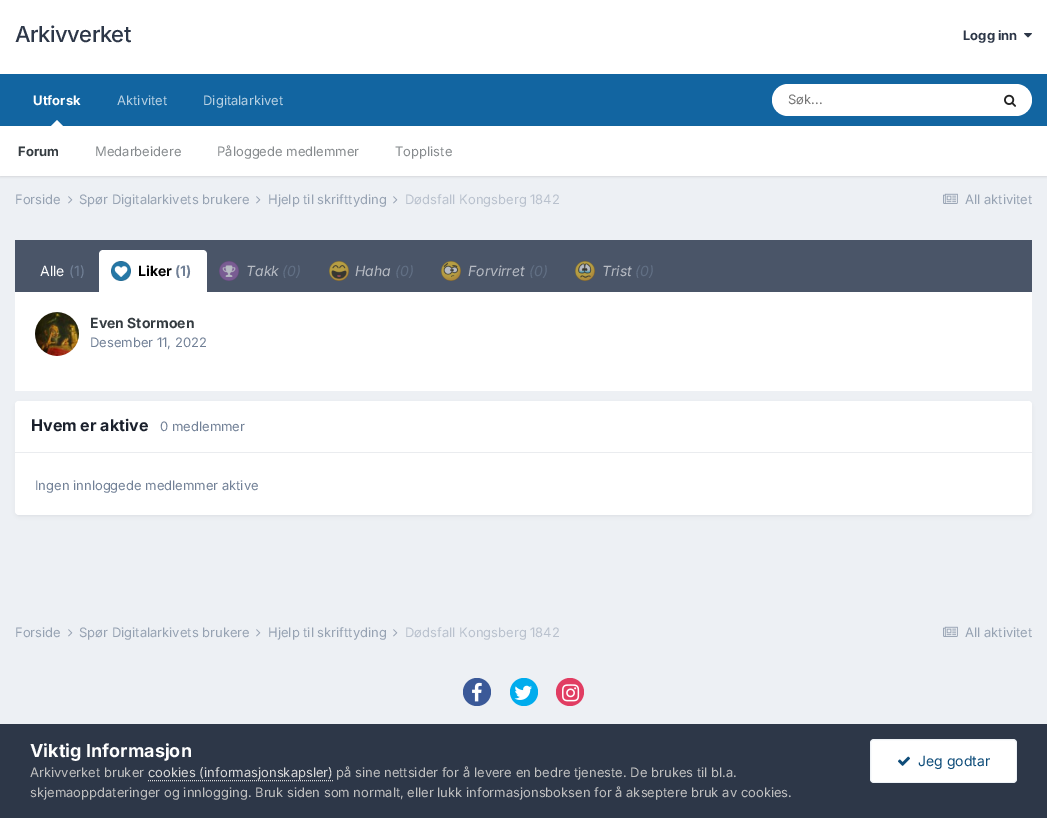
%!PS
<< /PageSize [1047 818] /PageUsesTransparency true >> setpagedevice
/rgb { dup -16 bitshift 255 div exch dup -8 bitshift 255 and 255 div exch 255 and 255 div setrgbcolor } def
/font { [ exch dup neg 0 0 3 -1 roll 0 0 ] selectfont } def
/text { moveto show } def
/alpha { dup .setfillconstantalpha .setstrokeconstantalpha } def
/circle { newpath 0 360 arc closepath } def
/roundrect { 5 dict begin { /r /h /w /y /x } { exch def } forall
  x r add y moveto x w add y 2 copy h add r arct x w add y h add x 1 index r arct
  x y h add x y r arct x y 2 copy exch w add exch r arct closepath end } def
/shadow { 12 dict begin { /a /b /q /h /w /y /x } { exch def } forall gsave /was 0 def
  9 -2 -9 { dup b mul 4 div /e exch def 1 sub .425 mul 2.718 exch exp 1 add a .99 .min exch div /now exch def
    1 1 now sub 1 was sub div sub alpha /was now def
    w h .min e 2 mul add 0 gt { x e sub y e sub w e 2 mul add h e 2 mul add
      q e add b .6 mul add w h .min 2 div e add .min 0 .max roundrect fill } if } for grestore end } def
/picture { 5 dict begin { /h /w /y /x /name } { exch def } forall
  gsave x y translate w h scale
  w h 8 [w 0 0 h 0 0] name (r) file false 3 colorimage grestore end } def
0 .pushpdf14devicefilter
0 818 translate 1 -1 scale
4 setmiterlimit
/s1 { /Inter-Bold 13 font 16#2D3748 rgb } def
/s2 { /Inter-Bold 13 font 16#FFFFFF rgb } def
/s3 { /Inter-Bold 13 font 16#353C41 rgb } def
/s4 { /Inter-Regular 13 font 16#868A8D rgb } def
/s5 { /Inter-Regular 13 font 16#B8D1E3 rgb } def
/s6 { /Inter-Regular 13 font 16#757575 rgb } def
/s7 { /Inter-Regular 13 font 16#96A2B2 rgb } def
/s8 { /Inter-Regular 13 font 16#B9C1CD rgb } def
/s9 { /Inter-Regular 14 font 16#FFFFFF rgb } def
/s10 { /Inter-Regular 14 font 16#718096 rgb } def
/s11 { /Inter-Bold 14 font 16#000000 rgb } def
/s12 { /Inter-Bold 14 font 16#718096 rgb } def
/s13 { /Inter-Italic 14 font 16#B7BBC3 rgb } def
/s14 { /Inter-Italic 14 font 16#616F84 rgb } def
/s15 { /Inter-Bold 14 font 16#353C41 rgb } def
/s16 { /Inter-Regular 13 font 16#718096 rgb } def
/s17 { /Inter-Bold 16 font 16#1A202C rgb } def
/s18 { /Inter-Bold 18 font 16#FFFFFF rgb } def
/s19 { /Inter-Regular 13 font 16#C0C0C0 rgb } def
/s20 { /Inter-Regular 13 font 16#DADADA rgb } def
/s21 { /Inter-Regular 14 font 16#0E4C79 rgb } def
16#EDF0F4 rgb
0 0 1047 818 rectfill
16#FFFFFF rgb
0 0 1047 74 rectfill
/Inter-Medium 22 font
16#2D3748 rgb
15 42 moveto -0.5 0 (Arkivverket) ashow
s1
(Logg inn) 963 40 text
(pic1.raw) 1024 33 8 5 picture
16#1265A1 rgb
0 74 1047 52 rectfill
s2
(Utforsk) 33 105 text
16#000000 rgb
0 127 1047 50 0 1 0.1 shadow
16#FFFFFF rgb
63 126 moveto 51 126 lineto 57 120 lineto closepath fill
0 126 1047 50 rectfill
s3
(Forum) 18 156 text
s4
(Medarbeidere) 95 156 text
(Påloggede medlemmer) 217 156 text
(Toppliste) 395 156 text
s5
(Aktivitet) 117 105 text
(Digitalarkivet) 203 105 text
16#FFFFFF rgb
772 84 260 32 16 roundrect fill
s6
(Søk...) 788 104 text
(pic2.raw) 1004 94 12 13 picture
s7
(Forside) 15 204 text
(pic3.raw) 68 196 5 8 picture
(Spør Digitalarkivets brukere) 79 204 text
(pic3.raw) 256 196 5 8 picture
(Hjelp til skrifttyding) 268 204 text
(pic3.raw) 393 196 5 8 picture
s8
(Dødsfall Kongsberg 1842) 405 204 text
(pic4.raw) 943 193 15 11 picture
s7
(All aktivitet) 965 204 text
16#4A5568 rgb
15 240 1017 52 rectfill
s9
(Alle) 40 276 text
s10
(\(1\)) 69 276 text
16#FFFFFF rgb
103 250 moveto 203 250 lineto 205 250 207 252 207 254 curveto 207 292 lineto 99 292 lineto 99 254 lineto 99 252 101 250 103 250 curveto closepath fill
(pic5.raw) 111 261 20 20 picture
s11
(Liker) 138 276 text
s12
(\(1\)) 175 276 text
(pic6.raw) 219 261 20 20 picture
s13
(Takk) 246 276 text
s14
(\(0\)) 282 276 text
(pic7.raw) 329 261 20 20 picture
s13
(Haha) 355 276 text
s14
(\(0\)) 395 276 text
(pic8.raw) 441 261 20 20 picture
s13
(Forvirret) 468 276 text
s14
(\(0\)) 529 276 text
(pic9.raw) 575 261 20 20 picture
s13
(Trist) 602 276 text
s14
(\(0\)) 635 276 text
16#FFFFFF rgb
15 292 1017 99 rectfill
(pic10.raw) 35 312 44 44 picture
s15
(Even Stormoen) 90 328 text
s16
(Desember 11, 2022) 90 347 text
16#2D3748 rgb
16 404 1015 112 3 2 0.1 shadow
16#FFFFFF rgb
15 401 1017 114 4 roundrect fill
19 401 moveto 1028 401 lineto 1030 401 1032 403 1032 405 curveto 1032 453 lineto 15 453 lineto 15 405 lineto 15 403 17 401 19 401 curveto closepath fill
16#EAECEF rgb
15 452 1017 1 rectfill
s17
(Hvem er aktive) 31 431 text
s16
(0 medlemmer) 160 431 text
(Ingen innloggede medlemmer aktive) 35 490 text
s7
(Forside) 15 637 text
(pic3.raw) 68 629 5 8 picture
(Spør Digitalarkivets brukere) 79 637 text
(pic3.raw) 256 629 5 8 picture
(Hjelp til skrifttyding) 268 637 text
(pic3.raw) 393 629 5 8 picture
s8
(Dødsfall Kongsberg 1842) 405 637 text
(pic4.raw) 943 626 15 11 picture
s7
(All aktivitet) 965 637 text
16#3B5998 rgb
477 692 14 circle fill
(pic11.raw) 472 682 10 20 picture
16#00ACED rgb
524 692 14 circle fill
(pic12.raw) 514 685 18 15 picture
16#E13D62 rgb
570 692 14 circle fill
(pic13.raw) 562 684 18 18 picture
16#2D3748 rgb
0 724 1047 94 rectfill
s18
(Viktig Informasjon) 30 757 text
s19
(Arkivverket bruker) 30 777 text
s20
(cookies \(informasjonskapsler\)) 148 777 text
[1 1] 0 setdash
148 780.5 moveto 333 780.5 lineto stroke
s19
(på sine nettsider for å levere en bedre tjeneste. De brukes til bl.a.) 336 777 text
(skjemaoppdateringer og innlogging. Bruk siden som normalt, eller lukk informasjonsboksen for å akseptere bruk av cookies.) 30 797 text
16#FFFFFF rgb
870 739 147 44 4 roundrect fill
0.07 alpha
16#0E4C79 rgb
[] 0 setdash
870.5 739.5 146 43 3.5 roundrect stroke
1 alpha
(pic14.raw) 898 756 12 10 picture
s21
(Jeg godtar) 918 766 text
.poppdf14devicefilter showpage
